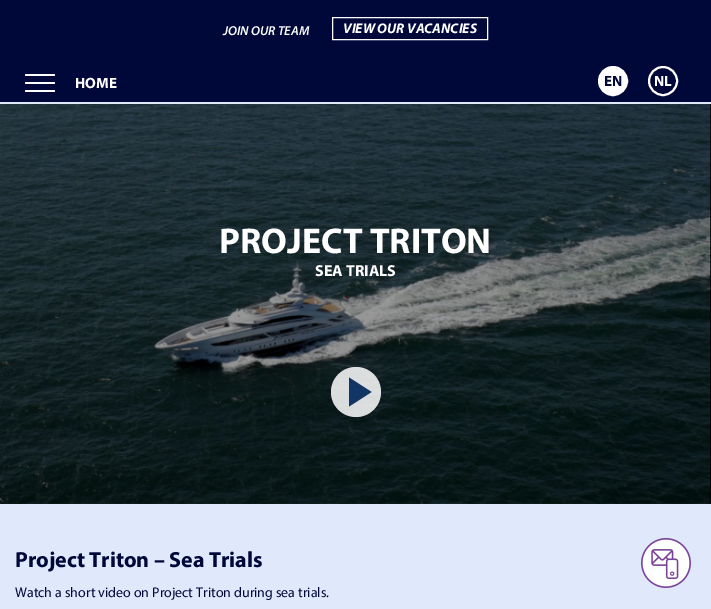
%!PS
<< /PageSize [711 609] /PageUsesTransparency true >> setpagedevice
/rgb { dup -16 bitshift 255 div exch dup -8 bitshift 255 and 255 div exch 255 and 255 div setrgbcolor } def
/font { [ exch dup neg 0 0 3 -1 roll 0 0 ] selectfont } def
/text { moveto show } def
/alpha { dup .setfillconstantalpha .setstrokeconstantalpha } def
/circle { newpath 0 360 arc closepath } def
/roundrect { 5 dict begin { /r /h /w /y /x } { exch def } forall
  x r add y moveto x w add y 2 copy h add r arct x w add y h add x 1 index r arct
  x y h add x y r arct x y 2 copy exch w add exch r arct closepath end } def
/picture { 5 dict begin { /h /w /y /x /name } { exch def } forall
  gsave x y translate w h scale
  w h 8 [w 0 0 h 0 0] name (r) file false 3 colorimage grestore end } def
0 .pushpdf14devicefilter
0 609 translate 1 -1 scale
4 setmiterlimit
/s1 { /Myriad-SemiBoldItalic 13 font 16#FFFFFF rgb } def
/s2 { /Myriad-BoldItalic 14 font 16#FFFFFF rgb } def
/s3 { /Myriad-Bold 15 font 16#FFFFFF rgb } def
/s4 { /Myriad-Bold 15 font 16#000839 rgb } def
/s5 { /Myriad-Bold 36 font 16#FFFFFF rgb } def
/s6 { /Myriad-Bold 16 font 16#FFFFFF rgb } def
/s7 { /Myriad-Bold 22 font 16#000839 rgb } def
/s8 { /Myriad-Regular 14 font 16#000839 rgb } def
16#000839 rgb
0 0 711 609 rectfill
s1
(JOIN OUR TEAM) 223 35 text
332.5 17.5 155 22 rectstroke
s2
(VIEW OUR VACANCIES) 343 33 text
16#E0E8FB rgb
0 102 711 2 rectfill
16#FFFFFF rgb
25 82 30 2 1 roundrect fill
25 74 30 2 1 roundrect fill
25 90 30 2 1 roundrect fill
s3
(HOME) 75 88 text
613 81 14 circle gsave fill grestore
2 setlinewidth
stroke
s4
(EN) 604 86 text
16#FFFFFF rgb
663 81 14 circle stroke
(NL) 654 86 text
(pic1.raw) 0 104 711 400 picture
s5
(PROJECT TRITON) 219 253 text
s6
(SEA TRIALS) 315 276 text
0.85 alpha
356 392 25 circle fill
1 alpha
16#113565 rgb
349 406.5 moveto 349 377.5 lineto 371.5 392 lineto closepath fill
16#E0E8FB rgb
0 504 711 105 rectfill
s7
(Project Triton – Sea Trials) 15 567 text
s8
(Watch a short video on Project Triton during sea trials.) 15 597 text
(pic2.raw) 641 538 50 50 picture
.poppdf14devicefilter showpage
